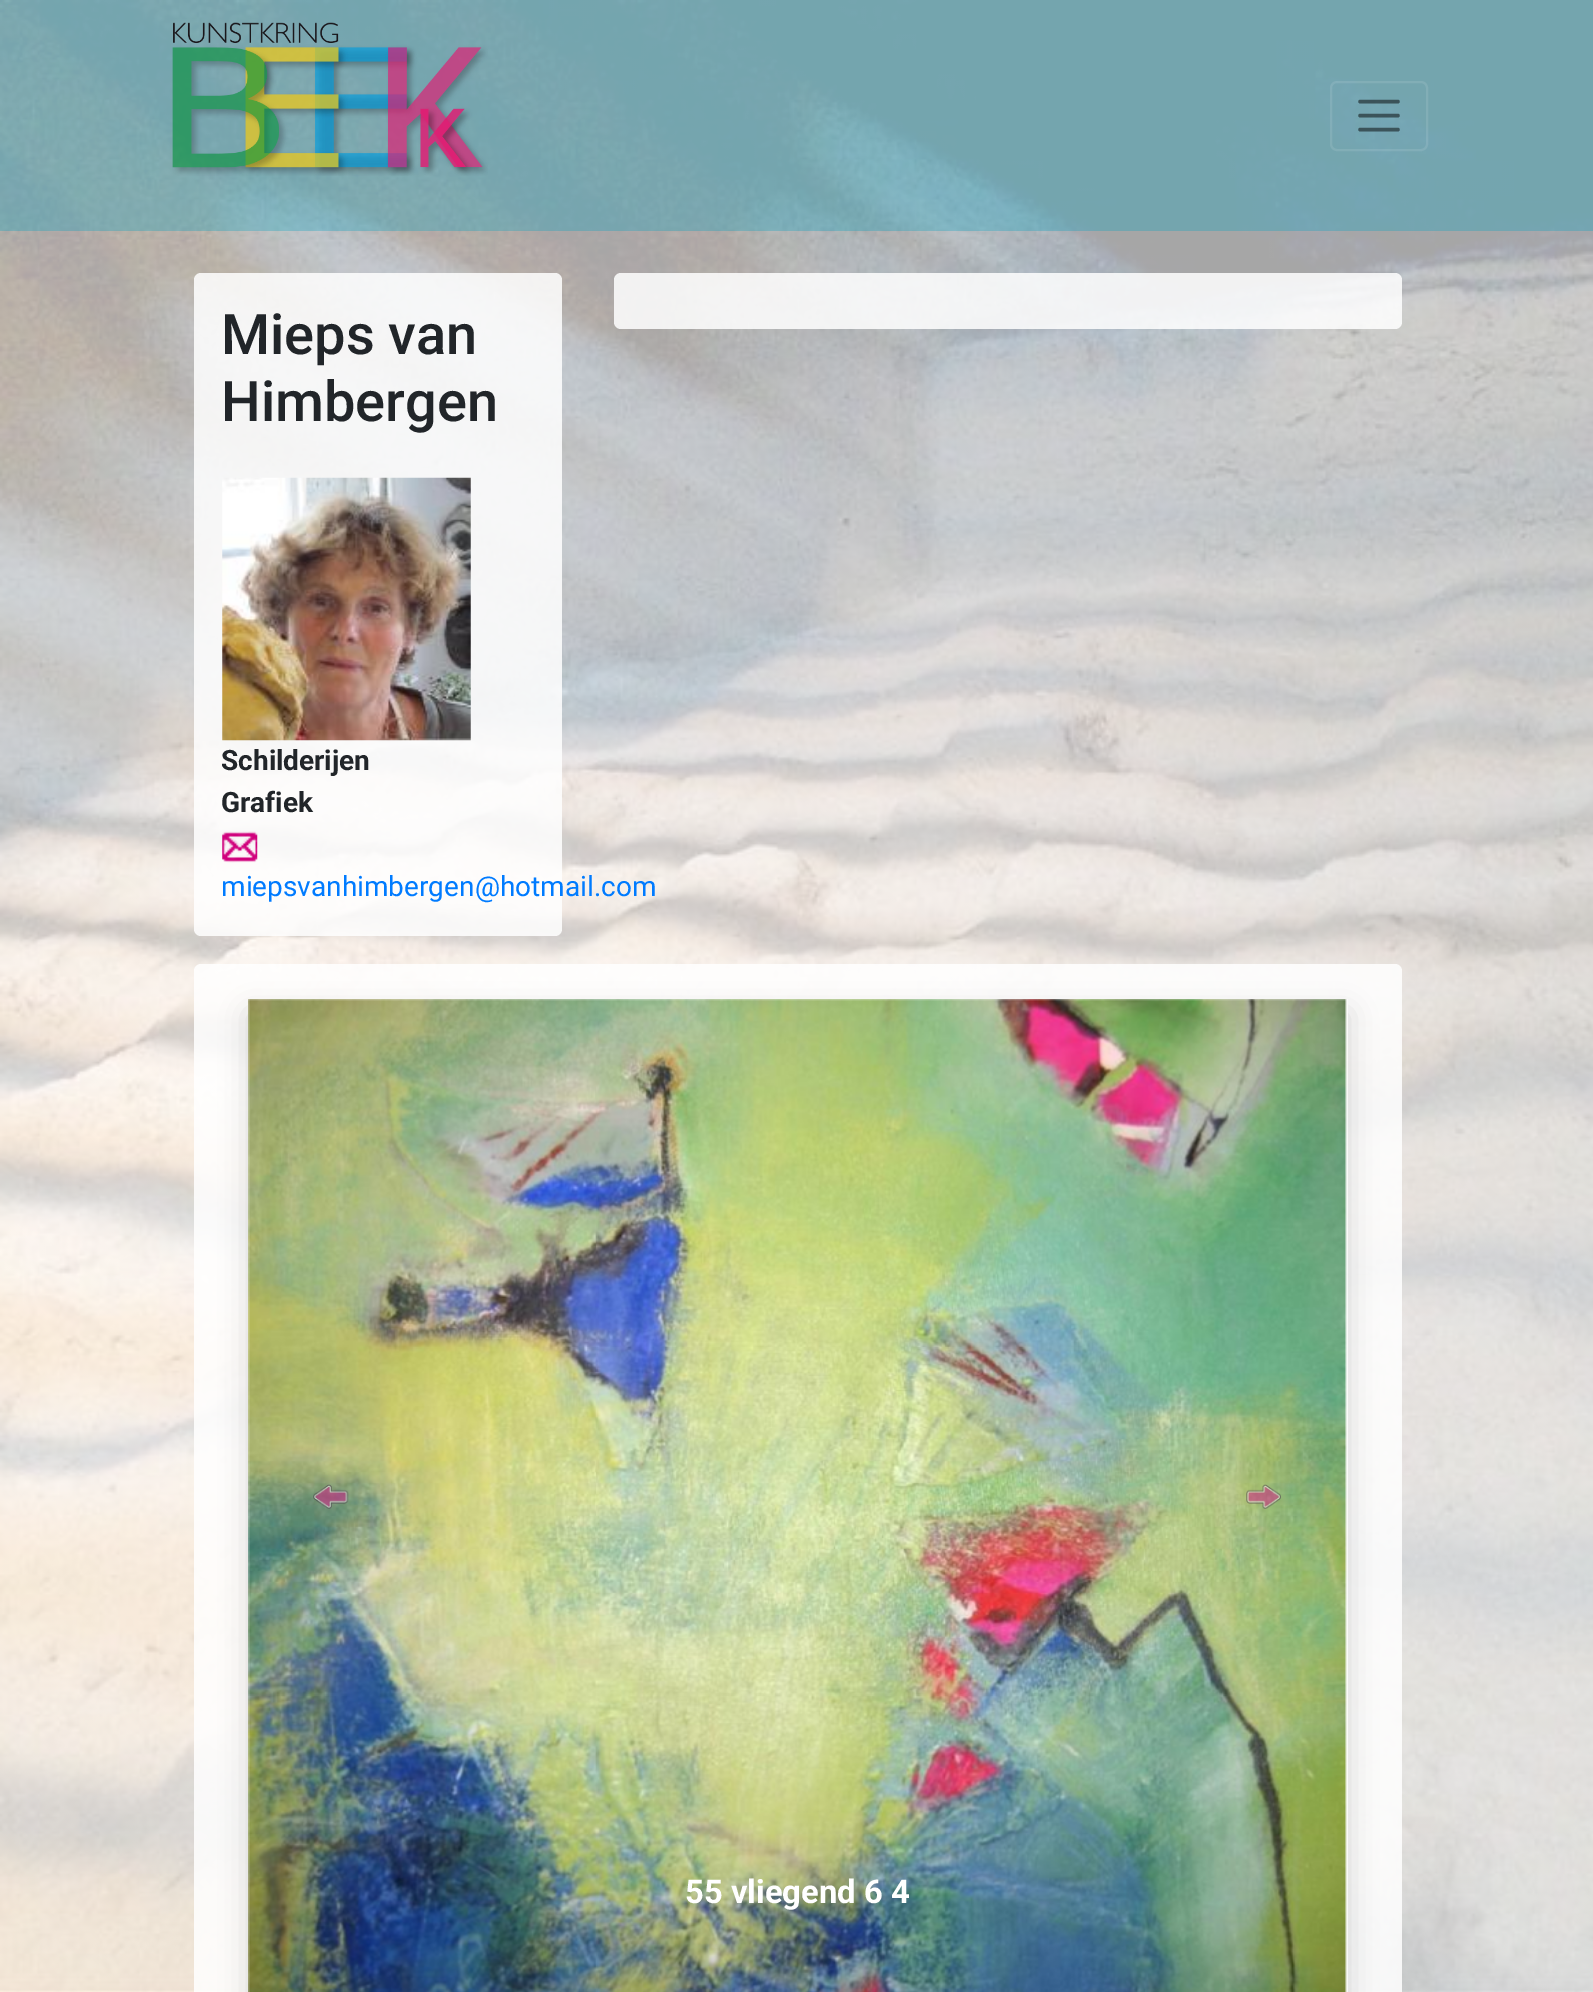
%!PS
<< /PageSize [1593 1992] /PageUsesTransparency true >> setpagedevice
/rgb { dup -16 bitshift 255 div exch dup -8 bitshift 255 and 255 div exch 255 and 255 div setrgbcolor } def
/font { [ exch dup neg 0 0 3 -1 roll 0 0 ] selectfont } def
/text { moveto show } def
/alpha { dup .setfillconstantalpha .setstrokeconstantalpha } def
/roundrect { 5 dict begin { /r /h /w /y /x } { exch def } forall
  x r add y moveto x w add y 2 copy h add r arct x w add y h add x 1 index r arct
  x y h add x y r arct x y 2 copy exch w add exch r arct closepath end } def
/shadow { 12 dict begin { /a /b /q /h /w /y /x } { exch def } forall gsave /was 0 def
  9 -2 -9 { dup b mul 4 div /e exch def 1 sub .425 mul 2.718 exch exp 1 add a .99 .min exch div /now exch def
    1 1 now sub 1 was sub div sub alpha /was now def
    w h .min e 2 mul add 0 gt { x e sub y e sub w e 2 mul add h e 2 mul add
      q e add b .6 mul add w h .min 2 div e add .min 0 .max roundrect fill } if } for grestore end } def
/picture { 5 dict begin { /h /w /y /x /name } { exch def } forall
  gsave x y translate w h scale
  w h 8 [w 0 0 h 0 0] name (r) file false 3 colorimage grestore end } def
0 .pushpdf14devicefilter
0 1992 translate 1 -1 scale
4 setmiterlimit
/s1 { /Roboto-Medium 56 font 16#212529 rgb } def
/s2 { /Roboto-Bold 28 font 16#212529 rgb } def
/s3 { /Roboto-Regular 28 font 16#007BFF rgb } def
/s4 { /Roboto-Bold 32.75 font 16#FFFFFF rgb } def
16#FFFFFF rgb
0 0 1593 1992 rectfill
(pic1.raw) 0 0 1593 1992 picture
0.3 alpha
16#00A2C2 rgb
0 0 1593 231 rectfill
1 alpha
(pic2.raw) 172 22 316 154 picture
0.1 alpha
16#FFFFFF rgb
2 setlinewidth
1331 82 96 68 6 roundrect stroke
0.5 alpha
16#020202 rgb
3.5 setlinewidth
1 setlinecap
1360 101.5 moveto 1398 101.5 lineto 1360 115.5 moveto 1398 115.5 lineto 1360 129.5 moveto 1398 129.5 lineto stroke
0.85 alpha
16#FFFFFF rgb
614 273 788 56 7 roundrect fill
194 273 368 663 7 roundrect fill
1 alpha
s1
(Mieps van) 221 354 text
(Himbergen) 221 421 text
(pic3.raw) 222 477 249 264 picture
s2
(Schilderijen) 221 770 text
(Grafiek) 221 812 text
(pic4.raw) 222 831 36 32 picture
s3
(miepsvanhimbergen@hotmail.com) 221 896 text
0.85 alpha
16#FFFFFF rgb
194 964 1208 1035 7 roundrect fill
gsave
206 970 moveto 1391 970 lineto 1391 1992 lineto 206 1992 lineto closepath 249 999 moveto 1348 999 lineto 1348 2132 lineto 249 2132 lineto closepath eoclip newpath
1 alpha
16#000000 rgb
249 1013 1099 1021 0 14 0.15 shadow
grestore
1 alpha
(pic7.raw) 248 999 1099 993 picture
(pic5.raw) 313 1484 36 25 picture
(pic6.raw) 1246 1484 35 25 picture
s4
(55 vliegend 6 4) 685 1903 text
.poppdf14devicefilter showpage
